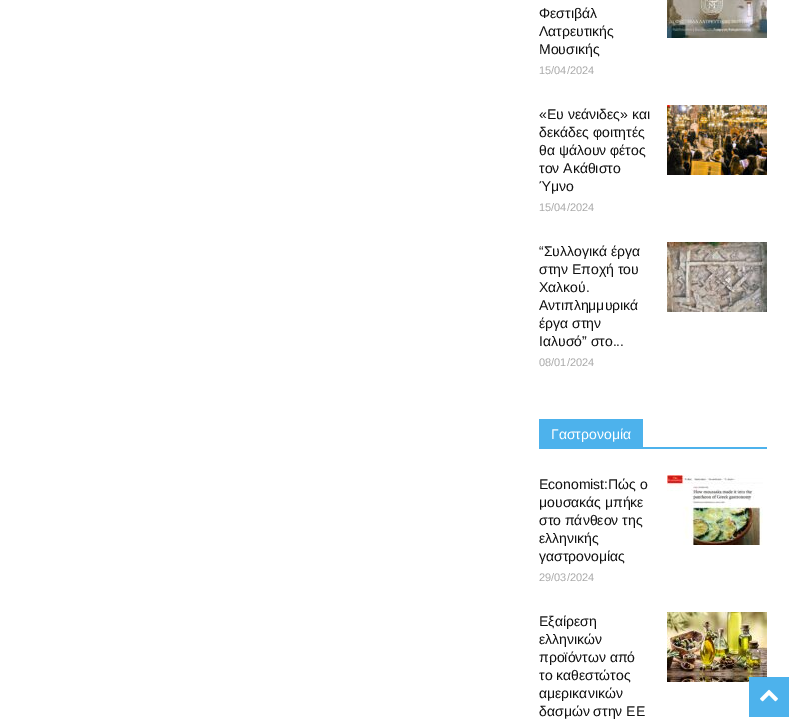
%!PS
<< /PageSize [794 721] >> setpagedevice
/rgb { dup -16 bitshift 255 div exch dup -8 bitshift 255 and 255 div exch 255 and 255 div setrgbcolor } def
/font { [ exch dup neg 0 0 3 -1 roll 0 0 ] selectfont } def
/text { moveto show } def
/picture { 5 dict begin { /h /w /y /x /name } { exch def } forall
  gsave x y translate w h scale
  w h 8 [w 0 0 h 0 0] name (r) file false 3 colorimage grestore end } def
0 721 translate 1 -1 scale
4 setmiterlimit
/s1 { /LiberationSans-Regular 14 font 16#111111 rgb } def
/s2 { /LiberationSans-Regular 11 font 16#AAAAAA rgb } def
/s3 { /LiberationSans-Regular 14 font 16#FFFFFF rgb } def
16#FFFFFF rgb
0 0 794 721 rectfill
s1
(Φεστιβάλ) 539 18 text
(Λατρευτικής) 539 36 text
(Μουσικής) 539 54 text
s2
(15/04/2024) 539 74 text
(pic1.raw) 667 0 100 38 picture
s1
(«Ευ νεάνιδες» και) 539 119 text
(δεκάδες φοιτητές) 539 137 text
(θα ψάλουν φέτος) 539 155 text
(τον Ακάθιστο) 539 173 text
(Ύμνο) 539 191 text
s2
(15/04/2024) 539 211 text
(pic2.raw) 667 105 100 70 picture
s1
(“Συλλογικά έργα) 539 256 text
(στην Εποχή του) 539 274 text
(Χαλκού.) 539 292 text
(Αντιπλημμυρικά) 539 310 text
(έργα στην) 539 328 text
(Ιαλυσό” στο...) 539 346 text
s2
(08/01/2024) 539 366 text
(pic3.raw) 667 242 100 70 picture
16#4DB2EC rgb
539 447 228 2 rectfill
539 419 104 28 rectfill
s3
(Γαστρονομία) 551 439 text
s1
(Economist:Πώς ο) 539 489 text
(μουσακάς μπήκε) 539 507 text
(στο πάνθεον της) 539 525 text
(ελληνικής) 539 543 text
(γαστρονομίας) 539 561 text
s2
(29/03/2024) 539 581 text
(pic4.raw) 667 475 96 70 picture
s1
(Εξαίρεση) 539 626 text
(ελληνικών) 539 644 text
(προϊόντων από) 539 662 text
(το καθεστώτος) 539 680 text
(αμερικανικών) 539 698 text
(δασμών στην ΕΕ) 539 716 text
(pic5.raw) 667 612 100 70 picture
16#4DB2EC rgb
749 677 40 40 rectfill
(pic6.raw) 760 689 18 13 picture
showpage
